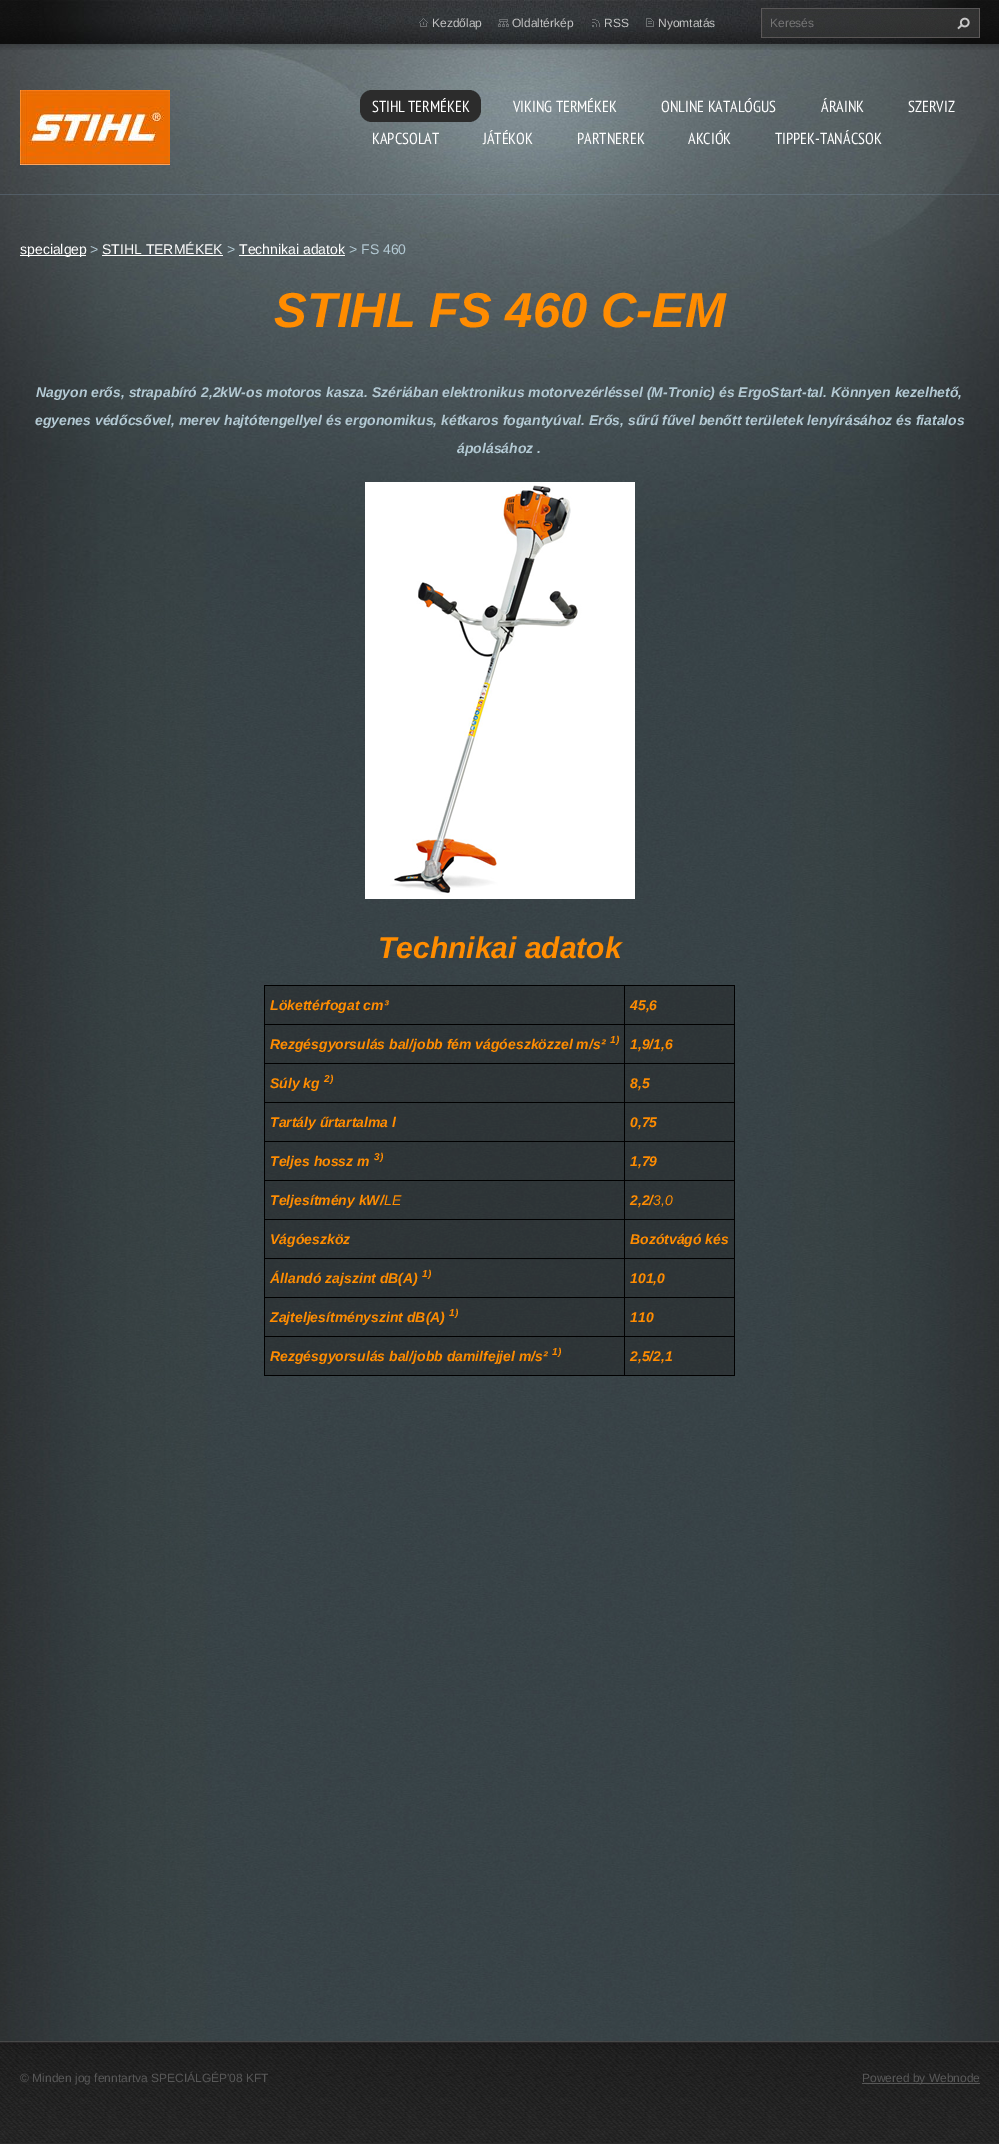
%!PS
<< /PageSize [999 2144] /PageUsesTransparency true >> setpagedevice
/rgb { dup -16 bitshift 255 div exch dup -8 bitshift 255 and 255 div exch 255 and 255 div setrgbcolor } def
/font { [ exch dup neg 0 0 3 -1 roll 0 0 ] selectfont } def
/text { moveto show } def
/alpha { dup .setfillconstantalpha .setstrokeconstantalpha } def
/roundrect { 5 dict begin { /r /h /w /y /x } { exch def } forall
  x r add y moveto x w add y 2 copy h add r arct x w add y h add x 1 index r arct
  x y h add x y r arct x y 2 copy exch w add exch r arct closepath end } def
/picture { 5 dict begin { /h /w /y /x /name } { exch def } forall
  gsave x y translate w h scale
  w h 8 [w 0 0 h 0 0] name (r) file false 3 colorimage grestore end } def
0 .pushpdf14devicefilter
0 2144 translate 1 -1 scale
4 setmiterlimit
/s1 { /LiberationSans-Regular 12 font 16#C3C3C3 rgb } def
/s2 { /LiberationSans-Regular 12 font 16#757575 rgb } def
/s3 { /PTSansNarrow-Regular 16 font 16#FFFFFF rgb } def
/s4 { /LiberationSans-Regular 14 font 16#FFFFFF rgb } def
/s5 { /LiberationSans-Regular 14 font 16#B3C9D3 rgb } def
/s6 { /LiberationSans-BoldItalic 49 font 16#FF8C00 rgb } def
/s7 { /LiberationSans-BoldItalic 14 font 16#B3C9D3 rgb } def
/s8 { /LiberationSans-BoldItalic 30 font 16#FF8C00 rgb } def
/s9 { /LiberationSans-BoldItalic 14 font 16#FF8C00 rgb } def
/s10 { /LiberationSans-BoldItalic 10 font 16#FF8C00 rgb } def
/s11 { /LiberationSans-Italic 14 font 16#FF8C00 rgb } def
/s12 { /LiberationSans-Regular 12 font 16#585858 rgb } def
16#FFFFFF rgb
0 0 999 2144 rectfill
(pic1.raw) 0 600 999 1441 picture
(pic2.raw) 0 44 999 556 picture
0.26 alpha
16#839EB9 rgb
0 194 999 1 rectfill
1 alpha
(pic3.raw) 0 0 999 50 picture
(pic4.raw) 39 0 925 44 picture
(pic5.raw) 419 18 9 9 picture
s1
(Kezdőlap) 432 27 text
(pic6.raw) 498 19 11 8 picture
(Oldaltérkép) 512 27 text
(pic7.raw) 592 19 8 8 picture
(RSS) 604 27 text
(pic8.raw) 646 18 8 9 picture
(Nyomtatás) 658 27 text
(pic9.raw) 761 8 219 30 picture
s2
(Keresés) 770 27 text
(pic10.raw) 957 17 13 13 picture
(pic11.raw) 20 90 150 75 picture
16#2C2C2C rgb
360 90 121 32 12 roundrect fill
s3
(STIHL TERMÉKEK) 372 112 text
(VIKING TERMÉKEK) 513 112 text
(ONLINE KATALÓGUS) 661 112 text
(ÁRAINK) 821 112 text
(SZERVIZ) 908 112 text
(KAPCSOLAT) 372 144 text
(JÁTÉKOK) 483 144 text
(PARTNEREK) 577 144 text
(AKCIÓK) 688 144 text
(TIPPEK-TANÁCSOK) 775 144 text
20 255 66 1 rectfill
s4
(specialgep) 20 254 text
s5
(>) 90 254 text
s4
(STIHL TERMÉKEK) 102 254 text
102 255 121 1 rectfill
s5
(>) 227 254 text
s4
(Technikai adatok) 239 254 text
239 255 106 1 rectfill
s5
(> FS 460) 349 254 text
s6
(STIHL FS 460 C-EM) 274 327 text
s7
(Nagyon erős, strapabíró 2,2kW-os motoros kasza. Szériában elektronikus motorvezérléssel \(M-Tronic\) és ErgoStart-tal. Könnyen kezelhető,) 36 397 text
(egyenes védőcsővel, merev hajtótengellyel és ergonomikus, kétkaros fogantyúval. Erős, sűrű fűvel benőtt területek lenyírásához és fiatalos) 35 425 text
(ápolásához .) 457 453 text
(pic12.raw) 365 482 270 417 picture
s8
(Technikai adatok) 378 958 text
16#000000 rgb
264 985 471 1 rectfill
264 985 1 391 rectfill
0.36 alpha
16#1C1C1C rgb
265 986 359 38 rectfill
1 alpha
16#000000 rgb
734 985 1 391 rectfill
624 1375 111 1 rectfill
624 1336 1 40 rectfill
624 1336 111 1 rectfill
624 1297 1 40 rectfill
624 1297 111 1 rectfill
624 1258 1 40 rectfill
624 1258 111 1 rectfill
624 1219 1 40 rectfill
624 1219 111 1 rectfill
624 1180 1 40 rectfill
624 1180 111 1 rectfill
624 1141 1 40 rectfill
624 1141 111 1 rectfill
624 1102 1 40 rectfill
624 1102 111 1 rectfill
624 1063 1 40 rectfill
624 1063 111 1 rectfill
624 1024 1 40 rectfill
624 1024 111 1 rectfill
624 985 1 40 rectfill
264 1024 361 1 rectfill
s9
(Lökettérfogat cm³) 270 1010 text
0.36 alpha
16#1C1C1C rgb
625 986 109 38 rectfill
1 alpha
s9
(45,6) 630 1010 text
0.36 alpha
16#1C1C1C rgb
265 1025 359 38 rectfill
1 alpha
16#000000 rgb
264 1063 361 1 rectfill
s9
(Rezgésgyorsulás bal/jobb fém vágóeszközzel m/s²) 270 1049 text
s10
(1\)) 610 1043 text
0.36 alpha
16#1C1C1C rgb
625 1025 109 38 rectfill
1 alpha
s9
(1,9/1,6) 630 1049 text
0.36 alpha
16#1C1C1C rgb
265 1064 359 38 rectfill
1 alpha
16#000000 rgb
264 1102 361 1 rectfill
s9
(Súly kg) 270 1088 text
s10
(2\)) 324 1082 text
0.36 alpha
16#1C1C1C rgb
625 1064 109 38 rectfill
1 alpha
s9
(8,5) 630 1088 text
0.36 alpha
16#1C1C1C rgb
265 1103 359 38 rectfill
1 alpha
16#000000 rgb
264 1141 361 1 rectfill
s9
(Tartály űrtartalma l) 270 1127 text
0.36 alpha
16#1C1C1C rgb
625 1103 109 38 rectfill
1 alpha
s9
(0,75) 630 1127 text
0.36 alpha
16#1C1C1C rgb
265 1142 359 38 rectfill
1 alpha
16#000000 rgb
264 1180 361 1 rectfill
s9
(Teljes hossz m) 270 1166 text
s10
(3\)) 374 1160 text
0.36 alpha
16#1C1C1C rgb
625 1142 109 38 rectfill
1 alpha
s9
(1,79) 630 1166 text
0.36 alpha
16#1C1C1C rgb
265 1181 359 38 rectfill
1 alpha
16#000000 rgb
264 1219 361 1 rectfill
s9
(Teljesítmény kW/) 270 1205 text
s11
(LE) 384 1205 text
0.36 alpha
16#1C1C1C rgb
625 1181 109 38 rectfill
1 alpha
s9
(2,2/) 630 1205 text
s11
(3,0) 653 1205 text
0.36 alpha
16#1C1C1C rgb
265 1220 359 38 rectfill
1 alpha
16#000000 rgb
264 1258 361 1 rectfill
s9
(Vágóeszköz) 270 1244 text
0.36 alpha
16#1C1C1C rgb
625 1220 109 38 rectfill
1 alpha
s9
(Bozótvágó kés) 630 1244 text
0.36 alpha
16#1C1C1C rgb
265 1259 359 38 rectfill
1 alpha
16#000000 rgb
264 1297 361 1 rectfill
s9
(Állandó zajszint dB\(A\)) 270 1283 text
s10
(1\)) 422 1277 text
0.36 alpha
16#1C1C1C rgb
625 1259 109 38 rectfill
1 alpha
s9
(101,0) 630 1283 text
0.36 alpha
16#1C1C1C rgb
265 1298 359 38 rectfill
1 alpha
16#000000 rgb
264 1336 361 1 rectfill
s9
(Zajteljesítményszint dB\(A\)) 270 1322 text
s10
(1\)) 449 1316 text
0.36 alpha
16#1C1C1C rgb
625 1298 109 38 rectfill
1 alpha
s9
(110) 630 1322 text
0.36 alpha
16#1C1C1C rgb
265 1337 359 38 rectfill
1 alpha
16#000000 rgb
264 1375 361 1 rectfill
s9
(Rezgésgyorsulás bal/jobb damilfejjel m/s²) 270 1361 text
s10
(1\)) 552 1355 text
0.36 alpha
16#1C1C1C rgb
625 1337 109 38 rectfill
1 alpha
s9
(2,5/2,1) 630 1361 text
16#2A2A2A rgb
0 2143 999 1 rectfill
(pic13.raw) 0 2041 999 102 picture
gsave
20 2041 480 103 rectclip
s12
(© Minden jog fenntartva SPECIÁLGÉP'08 KFT) 20 2082 text
grestore
16#585858 rgb
862 2083 118 1 rectfill
s12
(Powered by Webnode) 862 2082 text
.poppdf14devicefilter showpage
